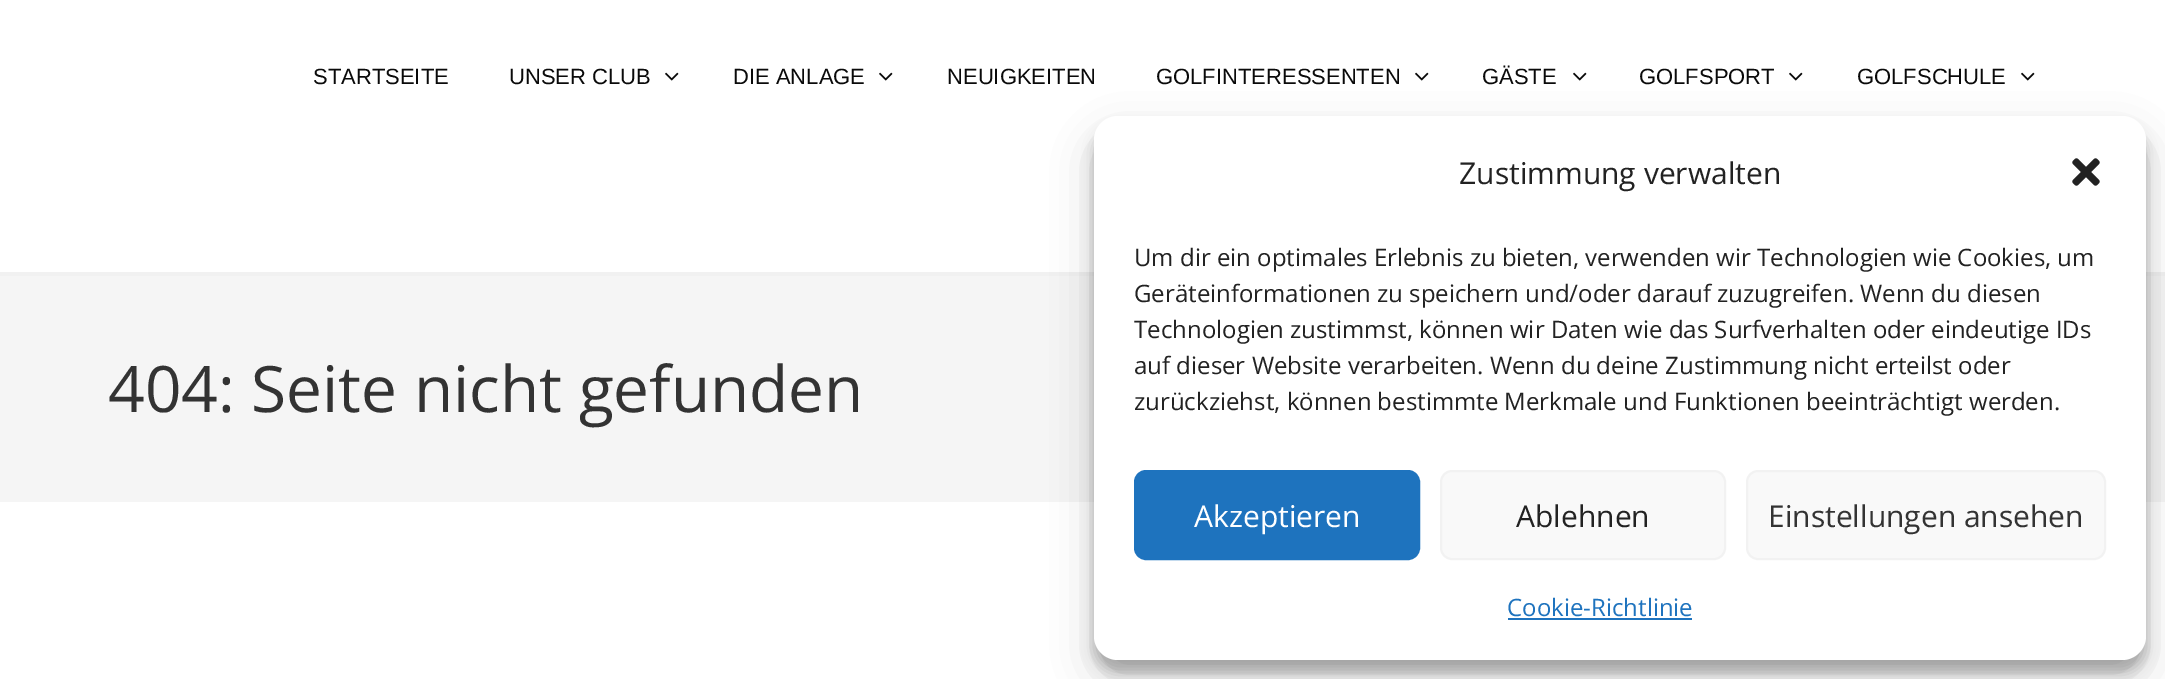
%!PS
<< /PageSize [2165 679] /PageUsesTransparency true >> setpagedevice
/rgb { dup -16 bitshift 255 div exch dup -8 bitshift 255 and 255 div exch 255 and 255 div setrgbcolor } def
/font { [ exch dup neg 0 0 3 -1 roll 0 0 ] selectfont } def
/text { moveto show } def
/alpha { dup .setfillconstantalpha .setstrokeconstantalpha } def
/roundrect { 5 dict begin { /r /h /w /y /x } { exch def } forall
  x r add y moveto x w add y 2 copy h add r arct x w add y h add x 1 index r arct
  x y h add x y r arct x y 2 copy exch w add exch r arct closepath end } def
/shadow { 12 dict begin { /a /b /q /h /w /y /x } { exch def } forall gsave /was 0 def
  9 -2 -9 { dup b mul 4 div /e exch def 1 sub .425 mul 2.718 exch exp 1 add a .99 .min exch div /now exch def
    1 1 now sub 1 was sub div sub alpha /was now def
    w h .min e 2 mul add 0 gt { x e sub y e sub w e 2 mul add h e 2 mul add
      q e add b .6 mul add w h .min 2 div e add .min 0 .max roundrect fill } if } for grestore end } def
/picture { 5 dict begin { /h /w /y /x /name } { exch def } forall
  gsave x y translate w h scale
  w h 8 [w 0 0 h 0 0] name (r) file false 3 colorimage grestore end } def
0 .pushpdf14devicefilter
0 679 translate 1 -1 scale
4 setmiterlimit
/s1 { /LiberationSans-Regular 22 font 16#0A0A0A rgb } def
/s2 { /OpenSans-Regular 64 font 16#333333 rgb } def
/s3 { /OpenSans-Regular 30 font 16#222222 rgb } def
/s4 { /OpenSans-Regular 24 font 16#222222 rgb } def
/s5 { /OpenSans-Regular 30 font 16#FFFFFF rgb } def
/s6 { /OpenSans-Regular 30 font 16#333333 rgb } def
/s7 { /OpenSans-Regular 24 font 16#1E73BE rgb } def
16#FFFFFF rgb
0 0 2165 679 rectfill
s1
(STARTSEITE) 313 84 text
(UNSER CLUB) 509 84 text
(pic1.raw) 665 72 14 9 picture
(DIE ANLAGE) 733 84 text
(pic1.raw) 879 72 14 9 picture
(NEUIGKEITEN) 947 84 text
(GOLFINTERESSENTEN) 1156 84 text
(pic1.raw) 1415 72 14 9 picture
(GÄSTE) 1482 84 text
(pic1.raw) 1573 72 14 9 picture
(GOLFSPORT) 1639 84 text
(pic1.raw) 1789 72 14 9 picture
(GOLFSCHULE) 1857 84 text
(pic1.raw) 2021 72 14 9 picture
16#F1F1F1 rgb
0 272 2165 4 rectfill
16#F5F5F5 rgb
0 276 2165 226 rectfill
s2
(404: Seite nicht gefunden) 108 412 text
16#000000 rgb
1094 128 1052 544 24 6 0.23 shadow
1094 136 1052 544 24 20 0.19 shadow
16#FFFFFF rgb
1094 116 1052 544 24 roundrect fill
s3
(Zustimmung verwalten) 1459 184 text
(pic2.raw) 2072 158 28 28 picture
s4
(Um dir ein optimales Erlebnis zu bieten, verwenden wir Technologien wie Cookies, um) 1134 266 text
(Geräteinformationen zu speichern und/oder darauf zuzugreifen. Wenn du diesen) 1134 302 text
(Technologien zustimmst, können wir Daten wie das Surfverhalten oder eindeutige IDs) 1134 338 text
(auf dieser Website verarbeiten. Wenn du deine Zustimmung nicht erteilst oder) 1134 374 text
(zurückziehst, können bestimmte Merkmale und Funktionen beeinträchtigt werden.) 1134 410 text
16#1E73BE rgb
1135 471 284 88 11 roundrect gsave fill grestore
2 setlinewidth
stroke
s5
(Akzeptieren) 1194 527 text
16#F9F9F9 rgb
1441 471 284 88 11 roundrect gsave fill grestore
16#F2F2F2 rgb
stroke
s3
(Ablehnen) 1516 527 text
16#F9F9F9 rgb
1747 471 358 88 11 roundrect gsave fill grestore
16#F2F2F2 rgb
stroke
s6
(Einstellungen ansehen) 1768 527 text
s7
(Cookie-Richtlinie) 1507 616 text
1508 618 184 2 rectfill
.poppdf14devicefilter showpage
